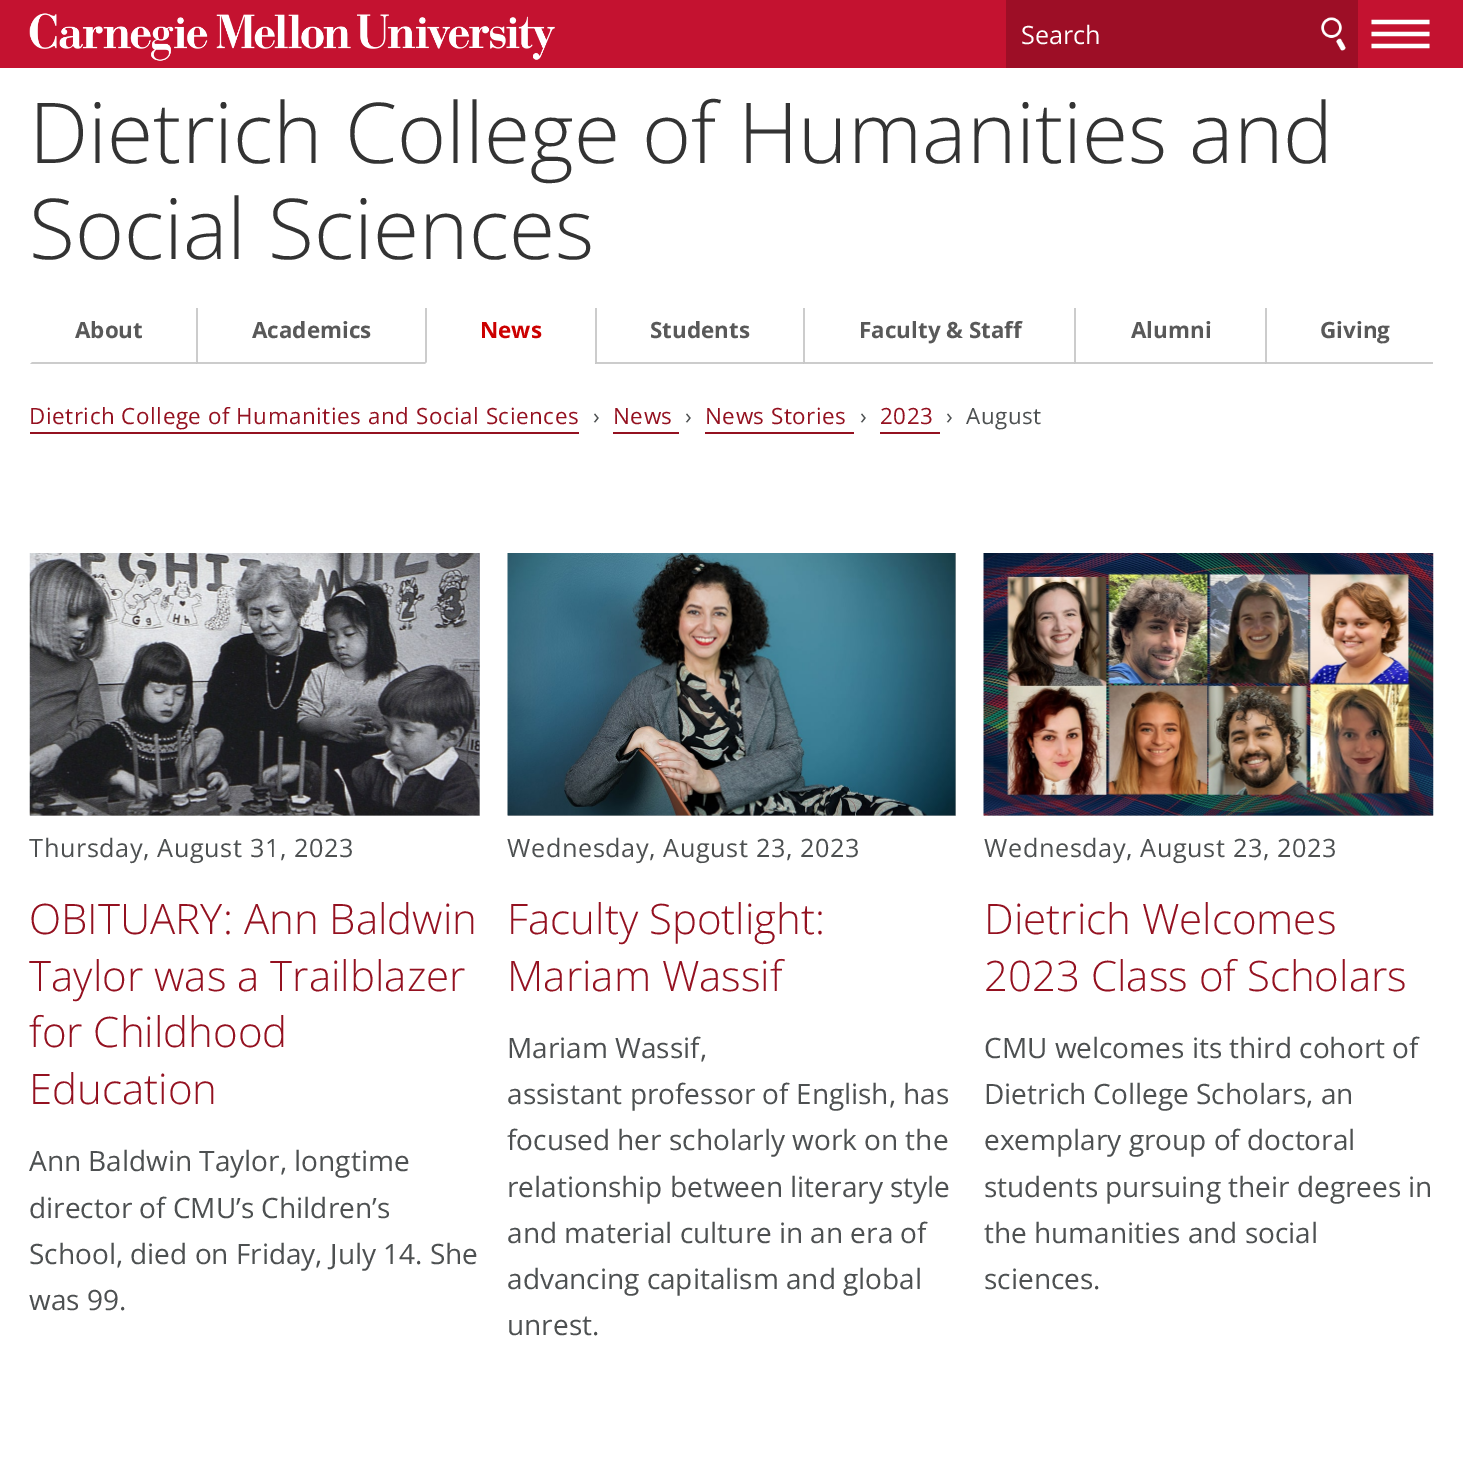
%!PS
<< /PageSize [1463 1469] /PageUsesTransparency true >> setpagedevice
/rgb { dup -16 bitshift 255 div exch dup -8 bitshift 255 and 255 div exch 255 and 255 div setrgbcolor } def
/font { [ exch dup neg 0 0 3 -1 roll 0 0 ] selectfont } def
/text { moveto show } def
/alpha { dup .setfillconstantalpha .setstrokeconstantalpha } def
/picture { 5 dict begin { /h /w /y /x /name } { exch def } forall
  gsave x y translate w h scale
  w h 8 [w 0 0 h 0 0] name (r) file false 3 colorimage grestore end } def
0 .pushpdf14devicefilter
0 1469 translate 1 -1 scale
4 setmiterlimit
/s1 { /OpenSans-Regular 25.25 font 16#FFFFFF rgb } def
/s2 { /OpenSans-Light 84 font 16#333333 rgb } def
/s3 { /OpenSans-Bold 22.4 font 16#595959 rgb } def
/s4 { /OpenSans-Bold 22.4 font 16#CC0000 rgb } def
/s5 { /OpenSans-Light 42 font 16#941120 rgb } def
/s6 { /OpenSans-Regular 28 font 16#4D5051 rgb } def
16#FFFFFF rgb
0 0 1463 1469 rectfill
16#C41230 rgb
0 0 1463 68 rectfill
(pic1.raw) 29 13 526 48 picture
16#9D0E26 rgb
1006 0 352 68 rectfill
s1
(Search) 1021 44 text
(pic2.raw) 1321 17 25 34 picture
/OpenSans-Regular 63 font
1369 39 moveto 2 0 (—) ashow
1369 51 moveto 2 0 (—) ashow
1369 63 moveto 2 0 (—) ashow
s2
(Dietrich College of Humanities and) 29 163 text
(Social Sciences) 29 259 text
16#CCCCCC rgb
196 364 moveto 30 364 lineto 32 362 lineto 196 362 lineto closepath fill
s3
(About) 75 338 text
16#CCCCCC rgb
425 364 moveto 196 364 lineto 198 362 lineto 425 362 lineto closepath fill
0.2 alpha
16#000000 rgb
196 364 moveto 196 308 lineto 198 308 lineto 198 362 lineto closepath fill
1 alpha
s3
(Academics) 252 338 text
16#CCCCCC rgb
425 364 moveto 425 308 lineto 427 308 lineto 427 362 lineto closepath fill
s4
(News) 480 338 text
16#CCCCCC rgb
803 364 moveto 595 364 lineto 597 362 lineto 803 362 lineto closepath fill
0.2 alpha
16#000000 rgb
595 364 moveto 595 308 lineto 597 308 lineto 597 362 lineto closepath fill
1 alpha
s3
(Students) 650 338 text
16#CCCCCC rgb
1074 364 moveto 803 364 lineto 805 362 lineto 1074 362 lineto closepath fill
0.2 alpha
16#000000 rgb
803 364 moveto 803 308 lineto 805 308 lineto 805 362 lineto closepath fill
1 alpha
s3
(Faculty & Staff) 859 338 text
16#CCCCCC rgb
1265 364 moveto 1074 364 lineto 1076 362 lineto 1265 362 lineto closepath fill
0.2 alpha
16#000000 rgb
1074 364 moveto 1074 308 lineto 1076 308 lineto 1076 362 lineto closepath fill
1 alpha
s3
(Alumni) 1131 338 text
16#CCCCCC rgb
1433 364 moveto 1265 364 lineto 1267 362 lineto 1433 362 lineto closepath fill
0.2 alpha
16#000000 rgb
1265 364 moveto 1265 308 lineto 1267 308 lineto 1267 362 lineto closepath fill
1 alpha
s3
(Giving) 1320 338 text
/OpenSans-Regular 22.4 font
16#941120 rgb
29 424 moveto 0.55 0 (Dietrich College of Humanities and Social Sciences) ashow
30 432 549 2 rectfill
16#4D5051 rgb
593 424 moveto 0.55 0 (›) ashow
16#941120 rgb
613 424 moveto 0.55 0 (News) ashow
613 432 66 2 rectfill
16#4D5051 rgb
685 424 moveto 0.55 0 (›) ashow
16#941120 rgb
705 424 moveto 0.55 0 (News Stories) ashow
705 432 149 2 rectfill
16#4D5051 rgb
860 424 moveto 0.55 0 (›) ashow
16#941120 rgb
880 424 moveto 0.55 0 (2023) ashow
880 432 60 2 rectfill
16#4D5051 rgb
946 424 moveto 0.55 0 (›) ashow
966 424 moveto 0.55 0 (August) ashow
16#BBBBBB rgb
30 553 450 263 rectfill
(pic3.raw) 29 553 451 263 picture
/OpenSans-Regular 25.25 font
16#4D5051 rgb
29 857 moveto 0.6 0 (Thursday, August 31, 2023) ashow
s5
(OBITUARY: Ann Baldwin) 29 934 text
(Taylor was a Trailblazer) 29 991 text
(for Childhood) 29 1047 text
(Education) 29 1104 text
s6
(Ann Baldwin Taylor, longtime) 29 1171 text
(director of CMU’s Children’s) 29 1218 text
(School, died on Friday, July 14. She) 29 1264 text
(was 99.) 29 1310 text
16#BBBBBB rgb
508 553 448 263 rectfill
(pic4.raw) 507 553 449 263 picture
/OpenSans-Regular 25.25 font
16#4D5051 rgb
507 857 moveto 0.6 0 (Wednesday, August 23, 2023) ashow
s5
(Faculty Spotlight:) 507 934 text
(Mariam Wassif) 507 991 text
s6
(Mariam Wassif,) 507 1058 text
(assistant professor of English, has) 507 1104 text
(focused her scholarly work on the) 507 1150 text
(relationship between literary style) 507 1197 text
(and material culture in an era of) 507 1243 text
(advancing capitalism and global) 507 1289 text
(unrest.) 507 1335 text
16#BBBBBB rgb
984 815 449 1 rectfill
(pic5.raw) 983 553 451 263 picture
/OpenSans-Regular 25.25 font
16#4D5051 rgb
984 857 moveto 0.6 0 (Wednesday, August 23, 2023) ashow
s5
(Dietrich Welcomes) 984 934 text
(2023 Class of Scholars) 984 991 text
s6
(CMU welcomes its third cohort of) 984 1058 text
(Dietrich College Scholars, an) 984 1104 text
(exemplary group of doctoral) 984 1150 text
(students pursuing their degrees in) 984 1197 text
(the humanities and social) 984 1243 text
(sciences.) 984 1289 text
.poppdf14devicefilter showpage
